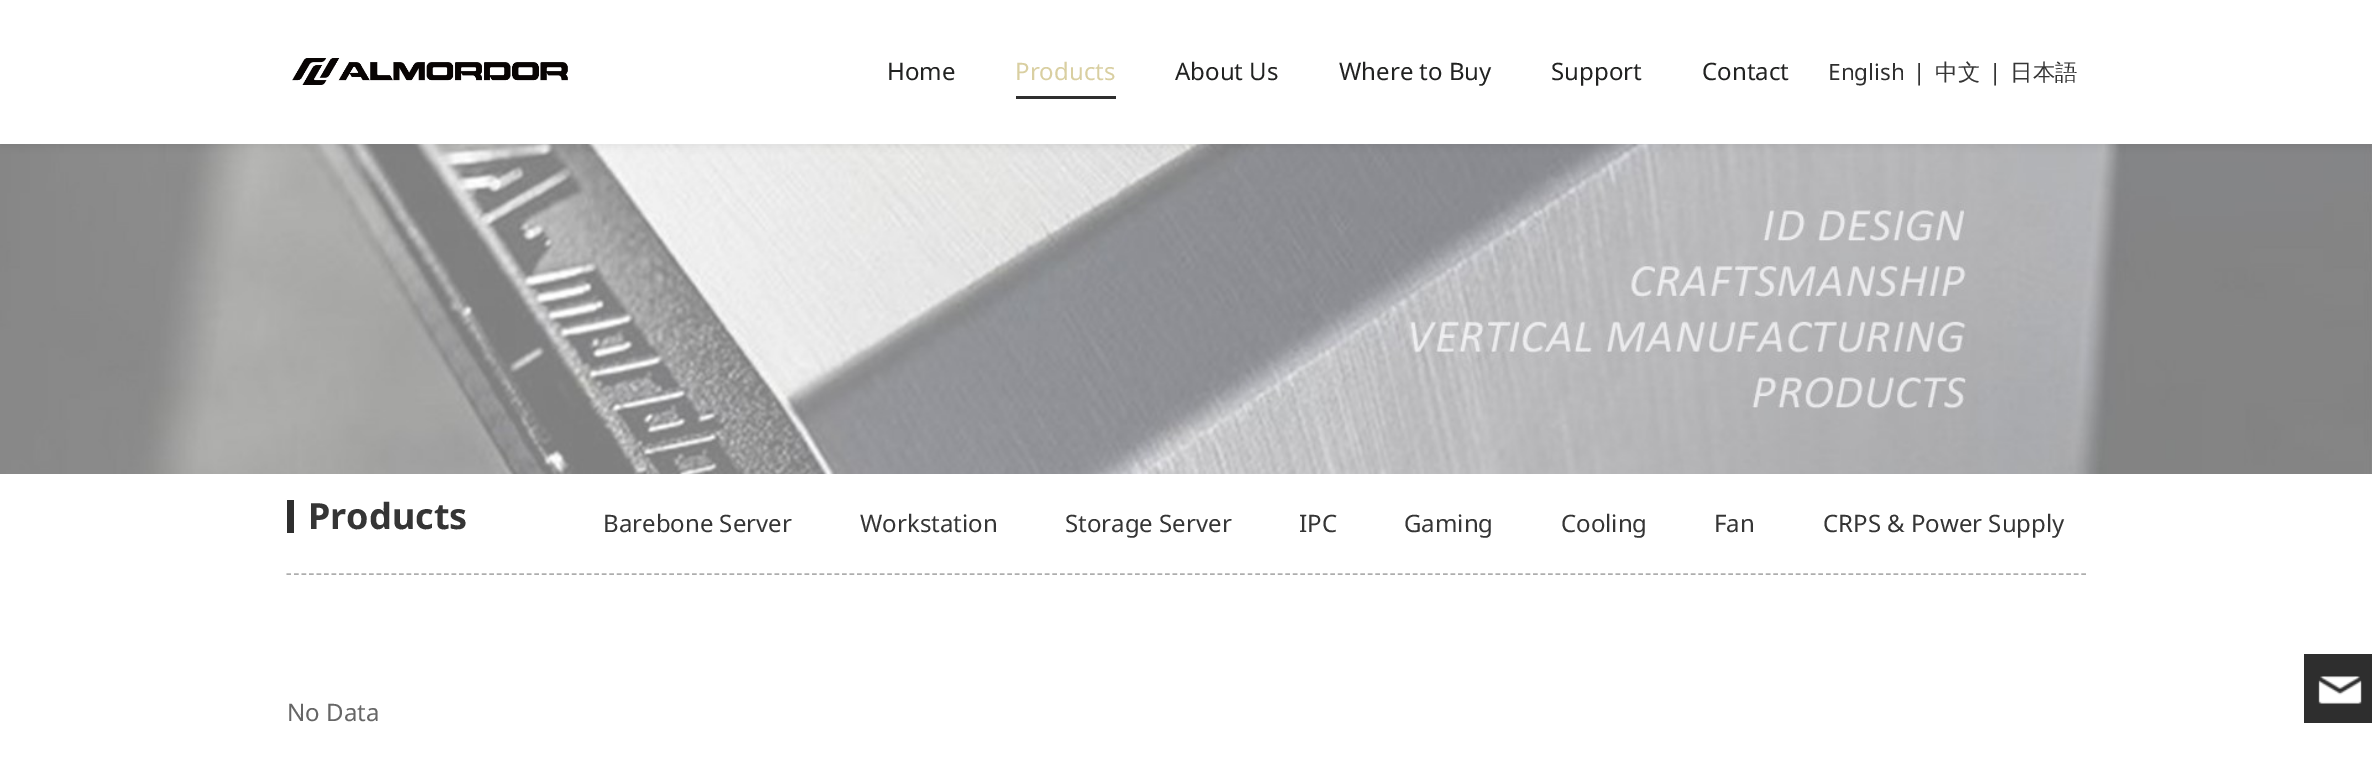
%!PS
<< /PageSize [2372 770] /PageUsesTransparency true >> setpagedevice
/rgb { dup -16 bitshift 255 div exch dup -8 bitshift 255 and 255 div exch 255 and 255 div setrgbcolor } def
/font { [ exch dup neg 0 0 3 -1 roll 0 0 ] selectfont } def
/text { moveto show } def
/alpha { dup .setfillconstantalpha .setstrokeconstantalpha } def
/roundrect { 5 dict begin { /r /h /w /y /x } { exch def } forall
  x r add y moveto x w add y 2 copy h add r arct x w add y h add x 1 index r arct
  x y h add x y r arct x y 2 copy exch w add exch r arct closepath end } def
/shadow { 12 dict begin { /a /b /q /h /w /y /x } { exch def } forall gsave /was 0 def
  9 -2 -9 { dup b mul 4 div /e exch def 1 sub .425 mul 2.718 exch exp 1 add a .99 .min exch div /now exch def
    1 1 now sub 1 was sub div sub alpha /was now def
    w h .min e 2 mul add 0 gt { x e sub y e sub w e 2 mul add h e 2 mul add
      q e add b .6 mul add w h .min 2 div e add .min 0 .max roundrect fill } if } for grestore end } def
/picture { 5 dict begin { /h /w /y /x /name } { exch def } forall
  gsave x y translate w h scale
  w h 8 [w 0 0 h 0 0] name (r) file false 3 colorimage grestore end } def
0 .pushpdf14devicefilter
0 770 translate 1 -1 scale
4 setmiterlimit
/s1 { /NotoSans-Regular 24 font 16#212221 rgb } def
/s2 { /NotoSans-Regular 24 font 16#D9CFA1 rgb } def
/s3 { /NotoSans-Regular 22.5 font 16#2E2E2E rgb } def
/s4 { /NotoSans-Regular 22.5 font 16#353535 rgb } def
/s5 { /WenQuanYiZenHei-Medium 22.5 font 16#353535 rgb } def
/s6 { /NotoSans-Bold 36 font 16#353535 rgb } def
/s7 { /NotoSans-Regular 24 font 16#353535 rgb } def
/s8 { /NotoSans-Regular 24 font 16#666666 rgb } def
16#FFFFFF rgb
0 0 2372 770 rectfill
(pic2.raw) 0 144 2372 330 picture
16#000000 rgb
0 3 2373 144 0 4 0.05 shadow
16#FFFFFF rgb
0 0 2372 144 rectfill
(pic1.raw) 292 58 276 27 picture
s1
(Home) 887 80 text
s2
(Products) 1015 80 text
16#2E2E2E rgb
1016 96 100 3 rectfill
s1
(About Us) 1175 80 text
(Where to Buy) 1339 80 text
(Support) 1551 80 text
(Contact) 1702 80 text
s3
(English) 1828 80 text
s4
(|) 1913 80 text
s5
(中文) 1935 80 text
s4
(|) 1989 80 text
s5
(日本語) 2010 80 text
16#ADADAD rgb
1.5 setlinewidth
[4.5 3.01] 0 setdash
286.5 574 moveto 2086.5 574 lineto stroke
16#2E2E2E rgb
287 500 7 33 rectfill
s6
(Products) 308 529 text
s7
(Barebone Server) 603 532 text
(Workstation) 860 532 text
(Storage Server) 1065 532 text
(IPC) 1299 532 text
(Gaming) 1404 532 text
(Cooling) 1561 532 text
(Fan) 1714 532 text
(CRPS & Power Supply) 1823 532 text
s8
(No Data) 287 721 text
16#2E2E2E rgb
2304 654 68 69 rectfill
(pic3.raw) 2318 676 44 28 picture
.poppdf14devicefilter showpage
